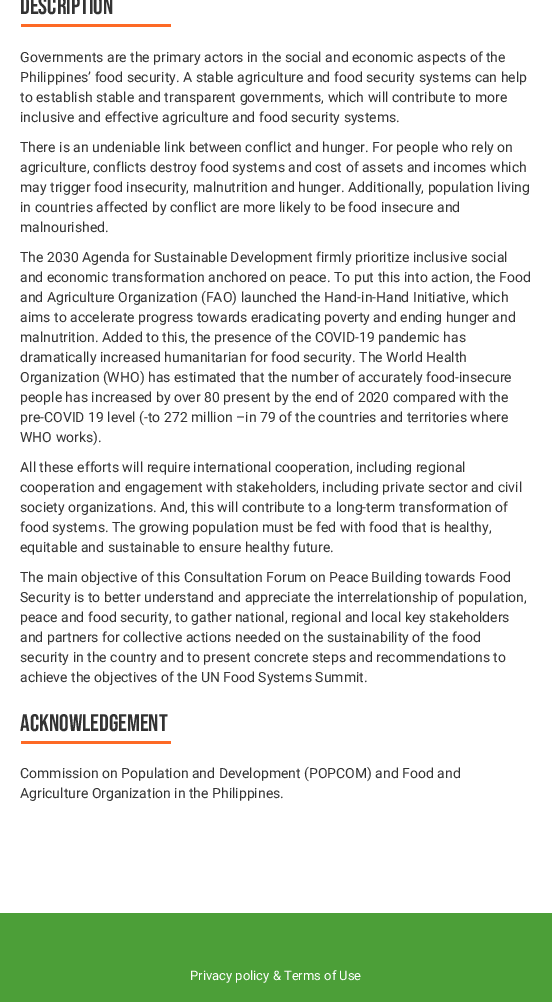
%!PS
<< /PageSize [552 1002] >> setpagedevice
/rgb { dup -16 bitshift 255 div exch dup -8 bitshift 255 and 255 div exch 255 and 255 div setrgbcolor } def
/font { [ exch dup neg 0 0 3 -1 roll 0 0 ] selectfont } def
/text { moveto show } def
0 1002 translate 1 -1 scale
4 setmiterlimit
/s1 { /BebasNeue-Regular 24 font 16#333333 rgb } def
/s2 { /Roboto-Regular 14 font 16#333333 rgb } def
/s3 { /Roboto-Regular 13 font 16#FFFFFF rgb } def
16#FFFFFF rgb
0 0 552 1002 rectfill
s1
(Description) 20 14 text
16#FD6925 rgb
21 24 150 3 rectfill
s2
(Governments are the primary actors in the social and economic aspects of the) 20 62 text
(Philippines’ food security. A stable agriculture and food security systems can help) 20 82 text
(to establish stable and transparent governments, which will contribute to more) 20 102 text
(inclusive and effective agriculture and food security systems.) 20 122 text
(There is an undeniable link between conflict and hunger. For people who rely on) 20 152 text
(agriculture, conflicts destroy food systems and cost of assets and incomes which) 20 172 text
(may trigger food insecurity, malnutrition and hunger. Additionally, population living) 20 192 text
(in countries affected by conflict are more likely to be food insecure and) 20 212 text
(malnourished.) 20 232 text
(The 2030 Agenda for Sustainable Development firmly prioritize inclusive social) 20 262 text
(and economic transformation anchored on peace. To put this into action, the Food) 20 282 text
(and Agriculture Organization \(FAO\) launched the Hand-in-Hand Initiative, which) 20 302 text
(aims to accelerate progress towards eradicating poverty and ending hunger and) 20 322 text
(malnutrition. Added to this, the presence of the COVID-19 pandemic has) 20 342 text
(dramatically increased humanitarian for food security. The World Health) 20 362 text
(Organization \(WHO\) has estimated that the number of accurately food-insecure) 20 382 text
(people has increased by over 80 present by the end of 2020 compared with the) 20 402 text
(pre-COVID 19 level \(-to 272 million –in 79 of the countries and territories where) 20 422 text
(WHO works\).) 20 442 text
(All these efforts will require international cooperation, including regional) 20 472 text
(cooperation and engagement with stakeholders, including private sector and civil) 20 492 text
(society organizations. And, this will contribute to a long-term transformation of) 20 512 text
(food systems. The growing population must be fed with food that is healthy,) 20 532 text
(equitable and sustainable to ensure healthy future.) 20 552 text
(The main objective of this Consultation Forum on Peace Building towards Food) 20 582 text
(Security is to better understand and appreciate the interrelationship of population,) 20 602 text
(peace and food security, to gather national, regional and local key stakeholders) 20 622 text
(and partners for collective actions needed on the sustainability of the food) 20 642 text
(security in the country and to present concrete steps and recommendations to) 20 662 text
(achieve the objectives of the UN Food Systems Summit.) 20 682 text
s1
(Acknowledgement) 20 731 text
16#FD6925 rgb
21 741 150 3 rectfill
s2
(Commission on Population and Development \(POPCOM\) and Food and) 20 778 text
(Agriculture Organization in the Philippines.) 20 798 text
16#4C9F38 rgb
0 913 552 89 rectfill
s3
(Privacy policy & Terms of Use) 190 980 text
showpage
